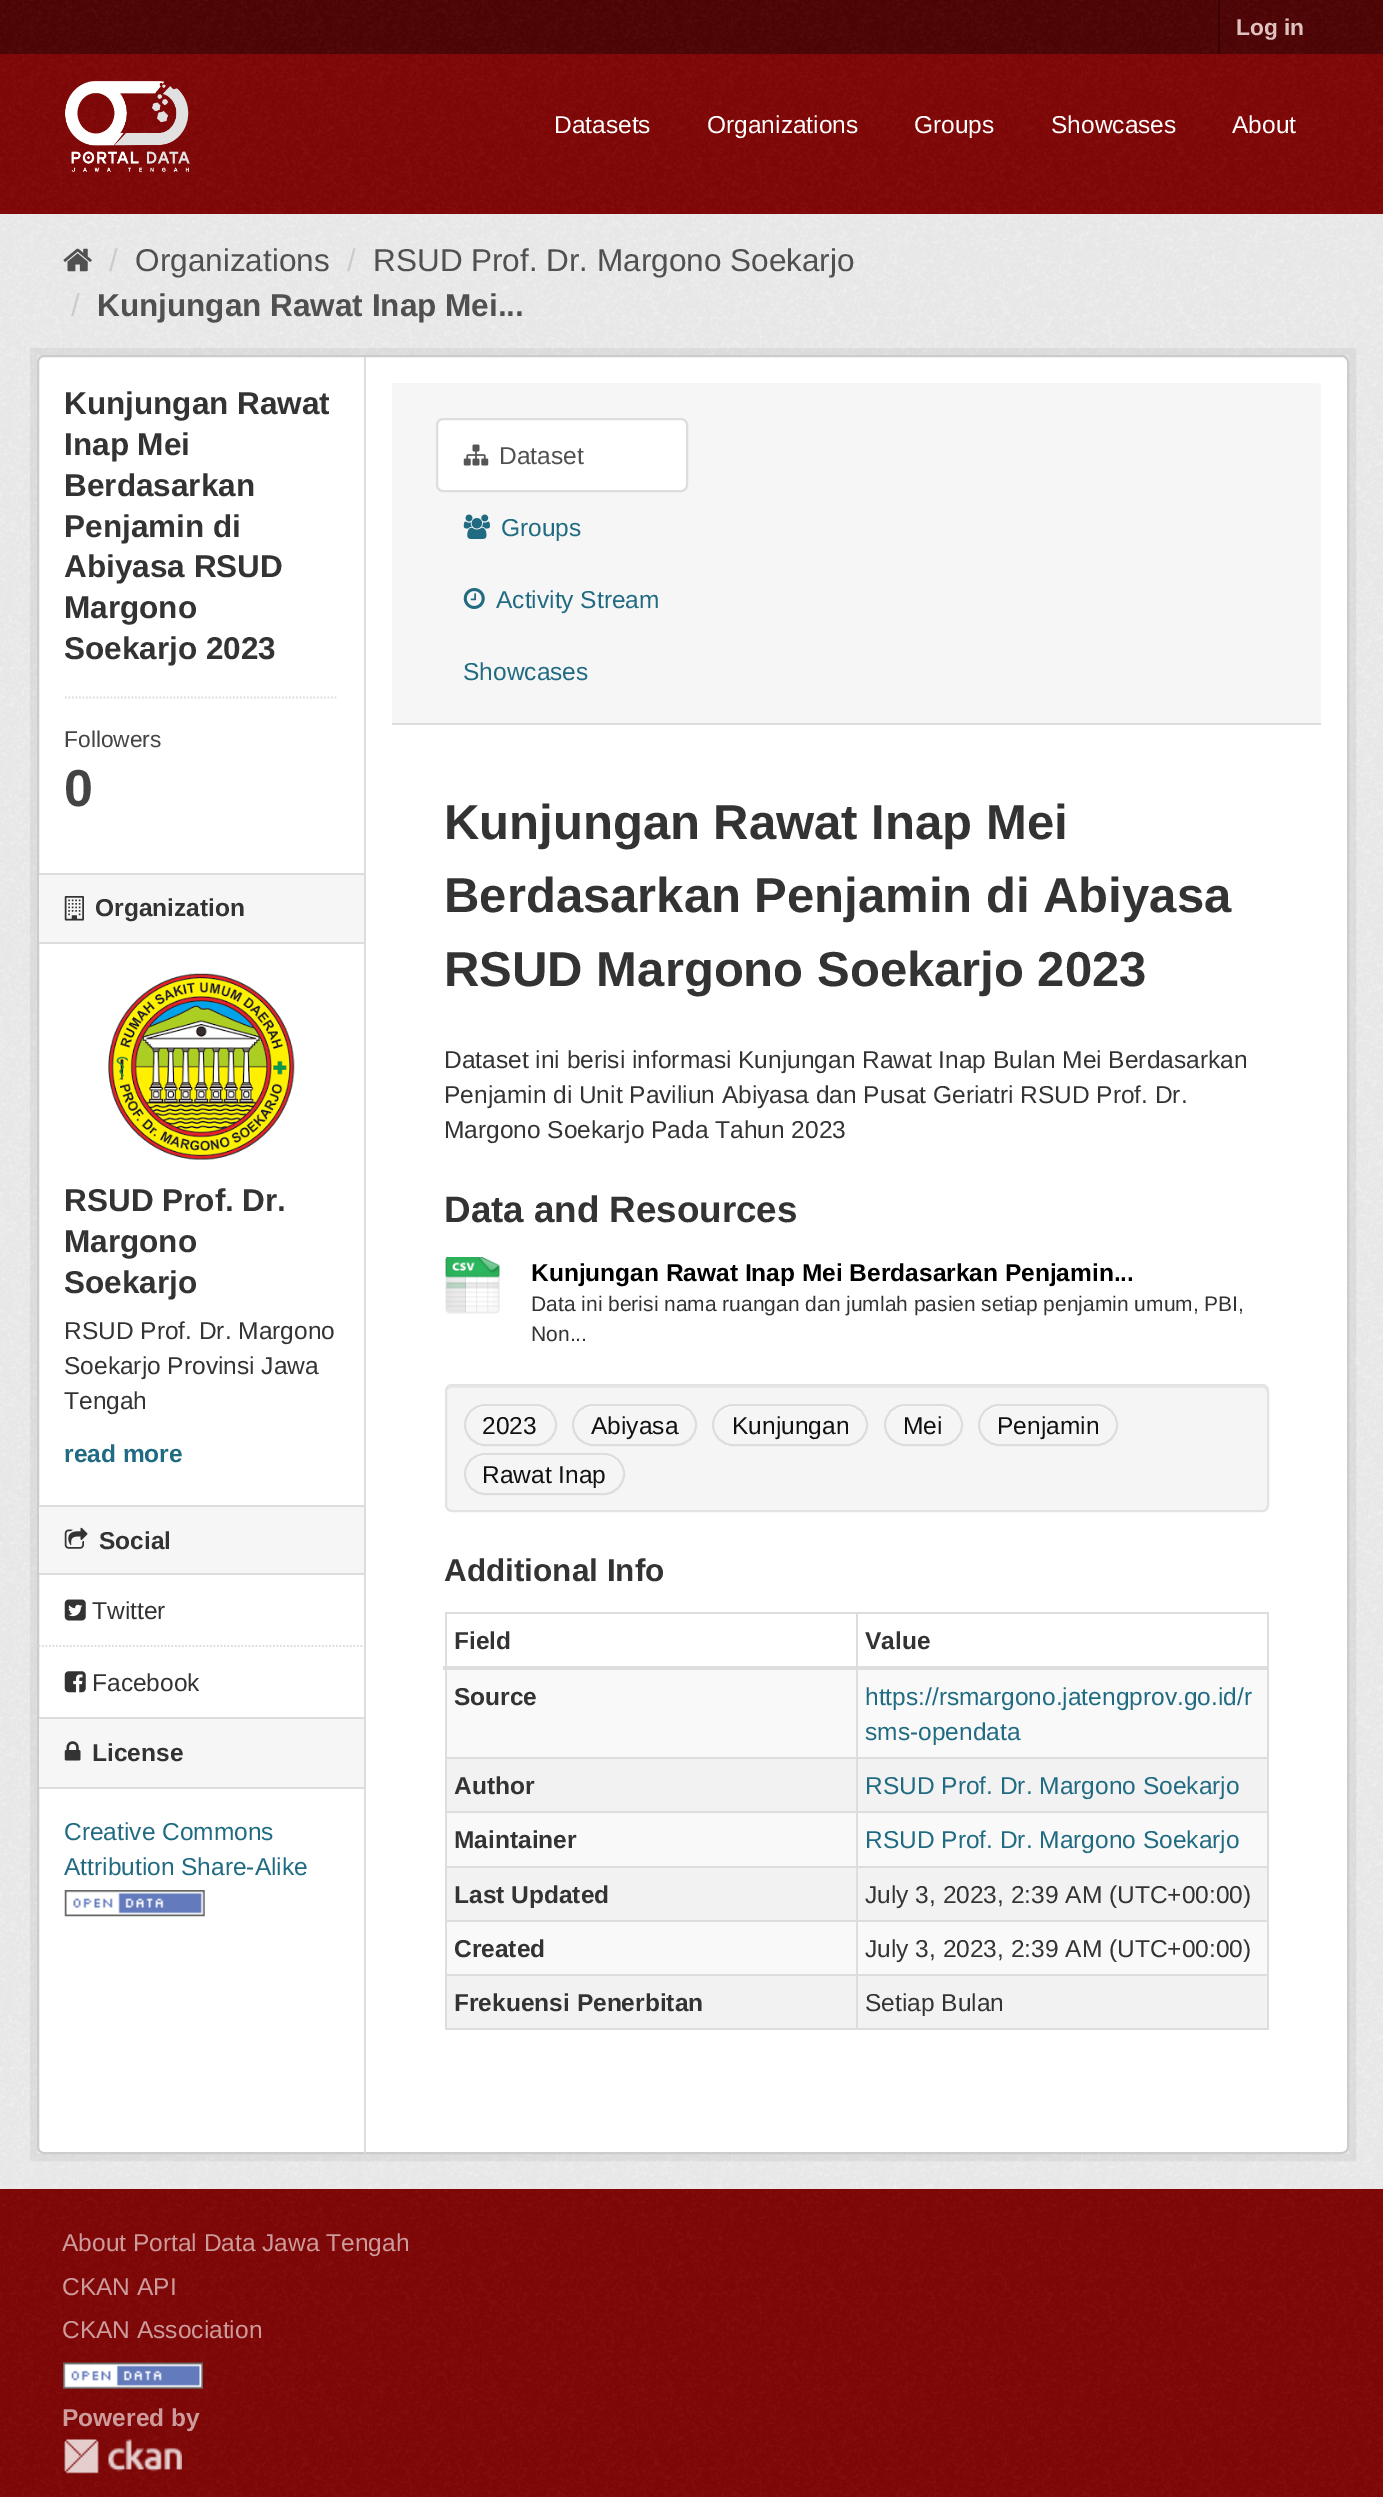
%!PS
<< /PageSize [1383 2497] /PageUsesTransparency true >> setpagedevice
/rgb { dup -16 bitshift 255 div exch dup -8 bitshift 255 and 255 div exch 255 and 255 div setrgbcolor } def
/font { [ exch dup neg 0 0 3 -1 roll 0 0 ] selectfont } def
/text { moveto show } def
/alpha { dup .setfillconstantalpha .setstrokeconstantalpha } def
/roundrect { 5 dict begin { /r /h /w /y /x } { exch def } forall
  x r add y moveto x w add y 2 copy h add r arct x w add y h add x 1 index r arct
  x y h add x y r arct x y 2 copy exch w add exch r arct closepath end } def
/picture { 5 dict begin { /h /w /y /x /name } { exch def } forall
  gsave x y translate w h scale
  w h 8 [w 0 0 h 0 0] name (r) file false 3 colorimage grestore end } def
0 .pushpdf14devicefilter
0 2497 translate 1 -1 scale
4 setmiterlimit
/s1 { /LiberationSans-Bold 22.75 font 16#E0C1C1 rgb } def
/s2 { /LiberationSans-Regular 24.5 font 16#FFFFFF rgb } def
/s3 { /LiberationSans-Regular 31.5 font 16#CCCCCC rgb } def
/s4 { /LiberationSans-Regular 31.5 font 16#505050 rgb } def
/s5 { /LiberationSans-Bold 31.5 font 16#505050 rgb } def
/s6 { /LiberationSans-Bold 31.5 font 16#333333 rgb } def
/s7 { /LiberationSans-Regular 22.75 font 16#444444 rgb } def
/s8 { /LiberationSans-Bold 52 font 16#444444 rgb } def
/s9 { /LiberationSans-Bold 24.5 font 16#333333 rgb } def
/s10 { /LiberationSans-Regular 24.5 font 16#333333 rgb } def
/s11 { /LiberationSans-Bold 24.5 font 16#206B82 rgb } def
/s12 { /LiberationSans-Regular 24.5 font 16#206B82 rgb } def
/s13 { /LiberationSans-Regular 24.5 font 16#505050 rgb } def
/s14 { /LiberationSans-Bold 49 font 16#333333 rgb } def
/s15 { /LiberationSans-Bold 36.75 font 16#333333 rgb } def
/s16 { /LiberationSans-Bold 24.5 font 16#000000 rgb } def
/s17 { /LiberationSans-Regular 21 font 16#333333 rgb } def
/s18 { /LiberationSans-Regular 24.5 font 16#111111 rgb } def
/s19 { /LiberationSans-Regular 24.5 font 16#CD9B9B rgb } def
/s20 { /LiberationSans-Bold 24.5 font 16#CD9B9B rgb } def
16#500404 rgb
0 0 1383 2497 rectfill
(pic1.raw) 0 0 1383 54 picture
16#380303 rgb
1218 0 2 54 rectfill
s1
(Log in) 1236 35 text
16#810606 rgb
0 54 1383 160 rectfill
(pic2.raw) 0 54 1383 159 picture
(pic3.raw) 65 81 125 91 picture
s2
(Datasets) 554 133 text
(Organizations) 707 133 text
(Groups) 914 133 text
(Showcases) 1051 133 text
(About) 1232 133 text
16#EEEEEE rgb
0 214 1383 1975 rectfill
(pic4.raw) 0 214 1383 1975 picture
(pic5.raw) 63 248 29 24 picture
s3
(/) 109 271 text
s4
(Organizations) 135 271 text
s3
(/) 347 271 text
s4
(RSUD Prof. Dr. Margono Soekarjo) 373 271 text
s3
(/) 71 316 text
s5
(Kunjungan Rawat Inap Mei...) 97 316 text
0.05 alpha
16#000000 rgb
7 setlinewidth
33.5 351.5 1319 1806 rectstroke
1 alpha
16#FFFFFF rgb
38 356 1310 1797 6 roundrect gsave fill grestore
16#CCCCCC rgb
2 setlinewidth
stroke
s6
(Kunjungan Rawat) 64 414 text
(Inap Mei) 64 455 text
(Berdasarkan) 64 496 text
(Penjamin di) 64 537 text
(Abiyasa RSUD) 64 577 text
(Margono) 64 618 text
(Soekarjo 2023) 64 659 text
16#DDDDDD rgb
1.8 setlinewidth
[1.75 1.75] 0 setdash
65 697.5 moveto 338 697.5 lineto stroke
s7
(Followers) 64 747 text
s8
(0) 64 806 text
16#F6F6F6 rgb
39 875 325 67 rectfill
16#DDDDDD rgb
39 873 325 2 rectfill
39 942 325 2 rectfill
(pic6.raw) 64 896 20 25 picture
s9
(Organization) 95 916 text
(pic7.raw) 108 973 187 187 picture
s6
(RSUD Prof. Dr.) 64 1211 text
(Margono) 64 1252 text
(Soekarjo) 64 1293 text
s10
(RSUD Prof. Dr. Margono) 64 1339 text
(Soekarjo Provinsi Jawa) 64 1374 text
(Tengah) 64 1409 text
s11
(read more) 64 1462 text
16#F6F6F6 rgb
39 1507 325 66 rectfill
16#DDDDDD rgb
39 1505 325 2 rectfill
39 1573 325 2 rectfill
(pic8.raw) 64 1527 24 22 picture
s9
(Social) 99 1549 text
16#DDDDDD rgb
38.5 1646 moveto 364 1646 lineto stroke
(pic9.raw) 64 1599 22 22 picture
s10
(Twitter) 92 1619 text
(pic10.raw) 64 1671 22 22 picture
(Facebook) 92 1691 text
16#F6F6F6 rgb
39 1719 325 68 rectfill
16#DDDDDD rgb
39 1717 325 2 rectfill
39 1787 325 2 rectfill
(pic11.raw) 64 1741 17 20 picture
s9
(License) 92 1761 text
s12
(Creative Commons) 64 1840 text
(Attribution Share-Alike) 64 1875 text
(pic12.raw) 64 1890 141 27 picture
16#DDDDDD rgb
364 357 2 1796 rectfill
16#F6F6F6 rgb
392 383 moveto 1316 383 lineto 1319 383 1321 385 1321 388 curveto 1321 725 lineto 392 725 lineto closepath fill
16#DDDDDD rgb
392 723 929 2 rectfill
16#FFFFFF rgb
437 419 250 72 6 roundrect gsave fill grestore
16#DDDDDD rgb
2 setlinewidth
[] 0 setdash
stroke
(pic13.raw) 463 444 26 22 picture
s13
(Dataset) 499 464 text
(pic14.raw) 463 514 27 25 picture
s12
(Groups) 501 536 text
(pic15.raw) 463 588 22 21 picture
(Activity Stream) 496 608 text
(Showcases) 463 680 text
s14
(Kunjungan Rawat Inap Mei) 444 839 text
(Berdasarkan Penjamin di Abiyasa) 444 912 text
(RSUD Margono Soekarjo 2023) 444 986 text
s10
(Dataset ini berisi informasi Kunjungan Rawat Inap Bulan Mei Berdasarkan) 444 1068 text
(Penjamin di Unit Paviliun Abiyasa dan Pusat Geriatri RSUD Prof. Dr.) 444 1103 text
(Margono Soekarjo Pada Tahun 2023) 444 1138 text
s15
(Data and Resources) 444 1222 text
(pic16.raw) 445 1257 55 57 picture
s16
(Kunjungan Rawat Inap Mei Berdasarkan Penjamin...) 531 1281 text
s17
(Data ini berisi nama ruangan dan jumlah pasien setiap penjamin umum, PBI,) 531 1311 text
(Non...) 531 1341 text
16#F5F5F5 rgb
445 1384 824 128 7 roundrect fill
16#E9E9E9 rgb
452 1388 moveto 1262 1388 lineto 1265 1388 1267 1390 1267 1393 curveto 1267 1391 lineto 1267 1388 1265 1386 1262 1386 curveto 451 1386 lineto 448 1386 446 1388 446 1391 curveto 446 1393 lineto 446 1390 449 1388 452 1388 curveto closepath fill
16#E3E3E3 rgb
446 1385 822 126 6 roundrect stroke
16#FFFFFF rgb
485 1407 moveto 536 1407 lineto 546 1407 555 1416 555 1425 curveto 555 1424 lineto 555 1414 546 1405 536 1405 curveto 486 1405 lineto 475 1405 466 1414 466 1424 curveto 466 1425 lineto 466 1416 474 1407 485 1407 curveto closepath fill
16#DDDDDD rgb
465 1405 91 40 20 roundrect stroke
s18
(2023) 482 1434 text
16#FFFFFF rgb
593 1407 moveto 676 1407 lineto 686 1407 695 1416 695 1425 curveto 695 1416 689 1407 679 1405 curveto 662 1405 lineto 590 1405 lineto 580 1407 574 1416 574 1425 curveto 574 1416 583 1407 593 1407 curveto closepath fill
16#DDDDDD rgb
573 1405 123 40 20 roundrect stroke
s18
(Abiyasa) 591 1434 text
16#FFFFFF rgb
733 1407 moveto 847 1407 lineto 858 1407 866 1416 866 1425 curveto 866 1424 lineto 866 1414 857 1405 846 1405 curveto 734 1405 lineto 723 1405 714 1414 714 1424 curveto 714 1425 lineto 714 1416 723 1407 733 1407 curveto closepath fill
16#DDDDDD rgb
713 1405 154 40 20 roundrect stroke
s18
(Kunjungan) 732 1434 text
16#FFFFFF rgb
905 1407 moveto 942 1407 lineto 952 1407 961 1416 961 1425 curveto 961 1421 960 1417 958 1414 curveto 950 1402 935 1405 924 1405 curveto 912 1405 897 1402 889 1414 curveto 887 1417 886 1421 886 1425 curveto 886 1416 894 1407 905 1407 curveto closepath fill
16#DDDDDD rgb
885 1405 77 40 20 roundrect stroke
s18
(Mei) 903 1434 text
16#FFFFFF rgb
999 1407 moveto 1097 1407 lineto 1108 1407 1116 1416 1116 1426 curveto 1116 1429 1115 1432 1114 1434 curveto 1116 1431 1117 1428 1117 1424 curveto 1117 1414 1108 1405 1098 1405 curveto 1000 1405 lineto 989 1405 980 1414 980 1424 curveto 980 1425 lineto 980 1416 989 1407 999 1407 curveto closepath fill
16#DDDDDD rgb
979 1405 138 40 20 roundrect stroke
s18
(Penjamin) 997 1434 text
16#FFFFFF rgb
485 1456 moveto 604 1456 lineto 614 1456 623 1465 623 1474 curveto 623 1463 614 1454 604 1454 curveto 486 1454 lineto 475 1454 466 1463 466 1474 curveto 466 1465 474 1456 485 1456 curveto closepath fill
16#DDDDDD rgb
465 1454 159 40 20 roundrect stroke
s18
(Rawat Inap) 482 1483 text
s6
(Additional Info) 444 1581 text
16#DDDDDD rgb
445 1612 824 2 rectfill
1267 1612 2 418 rectfill
445 2028 824 2 rectfill
445 1612 2 418 rectfill
s9
(Field) 454 1649 text
16#F9F9F9 rgb
447 1670 820 87 rectfill
16#DDDDDD rgb
856 1757 413 2 rectfill
856 1811 413 2 rectfill
16#F9F9F9 rgb
447 1813 820 53 rectfill
16#DDDDDD rgb
856 1866 413 2 rectfill
856 1920 413 2 rectfill
16#F9F9F9 rgb
447 1922 820 52 rectfill
16#DDDDDD rgb
856 1974 413 2 rectfill
856 1974 2 56 rectfill
445 1974 413 2 rectfill
856 1920 2 56 rectfill
445 1920 413 2 rectfill
856 1866 2 56 rectfill
445 1866 413 2 rectfill
856 1811 2 56 rectfill
445 1811 413 2 rectfill
856 1757 2 56 rectfill
445 1757 413 2 rectfill
856 1612 2 147 rectfill
443 1666 826 4 rectfill
s9
(Value) 865 1649 text
(Source) 454 1705 text
s12
(https://rsmargono.jatengprov.go.id/r) 865 1705 text
(sms-opendata) 865 1740 text
16#F2F2F2 rgb
447 1759 409 52 rectfill
s9
(Author) 454 1794 text
16#F2F2F2 rgb
858 1759 409 52 rectfill
s12
(RSUD Prof. Dr. Margono Soekarjo) 865 1794 text
s9
(Maintainer) 454 1848 text
s12
(RSUD Prof. Dr. Margono Soekarjo) 865 1848 text
16#F2F2F2 rgb
447 1868 409 52 rectfill
s9
(Last Updated) 454 1903 text
16#F2F2F2 rgb
858 1868 409 52 rectfill
s10
(July 3, 2023, 2:39 AM \(UTC+00:00\)) 865 1903 text
s9
(Created) 454 1957 text
s10
(July 3, 2023, 2:39 AM \(UTC+00:00\)) 865 1957 text
16#F2F2F2 rgb
447 1976 409 52 rectfill
s9
(Frekuensi Penerbitan) 454 2011 text
16#F2F2F2 rgb
858 1976 409 52 rectfill
s10
(Setiap Bulan) 865 2011 text
16#810606 rgb
0 2189 1383 308 rectfill
(pic17.raw) 0 2190 1383 307 picture
s19
(About Portal Data Jawa Tengah) 62 2251 text
(CKAN API) 62 2295 text
(CKAN Association) 62 2338 text
(pic18.raw) 63 2362 140 27 picture
s20
(Powered by) 62 2426 text
(pic19.raw) 64 2439 118 35 picture
.poppdf14devicefilter showpage
